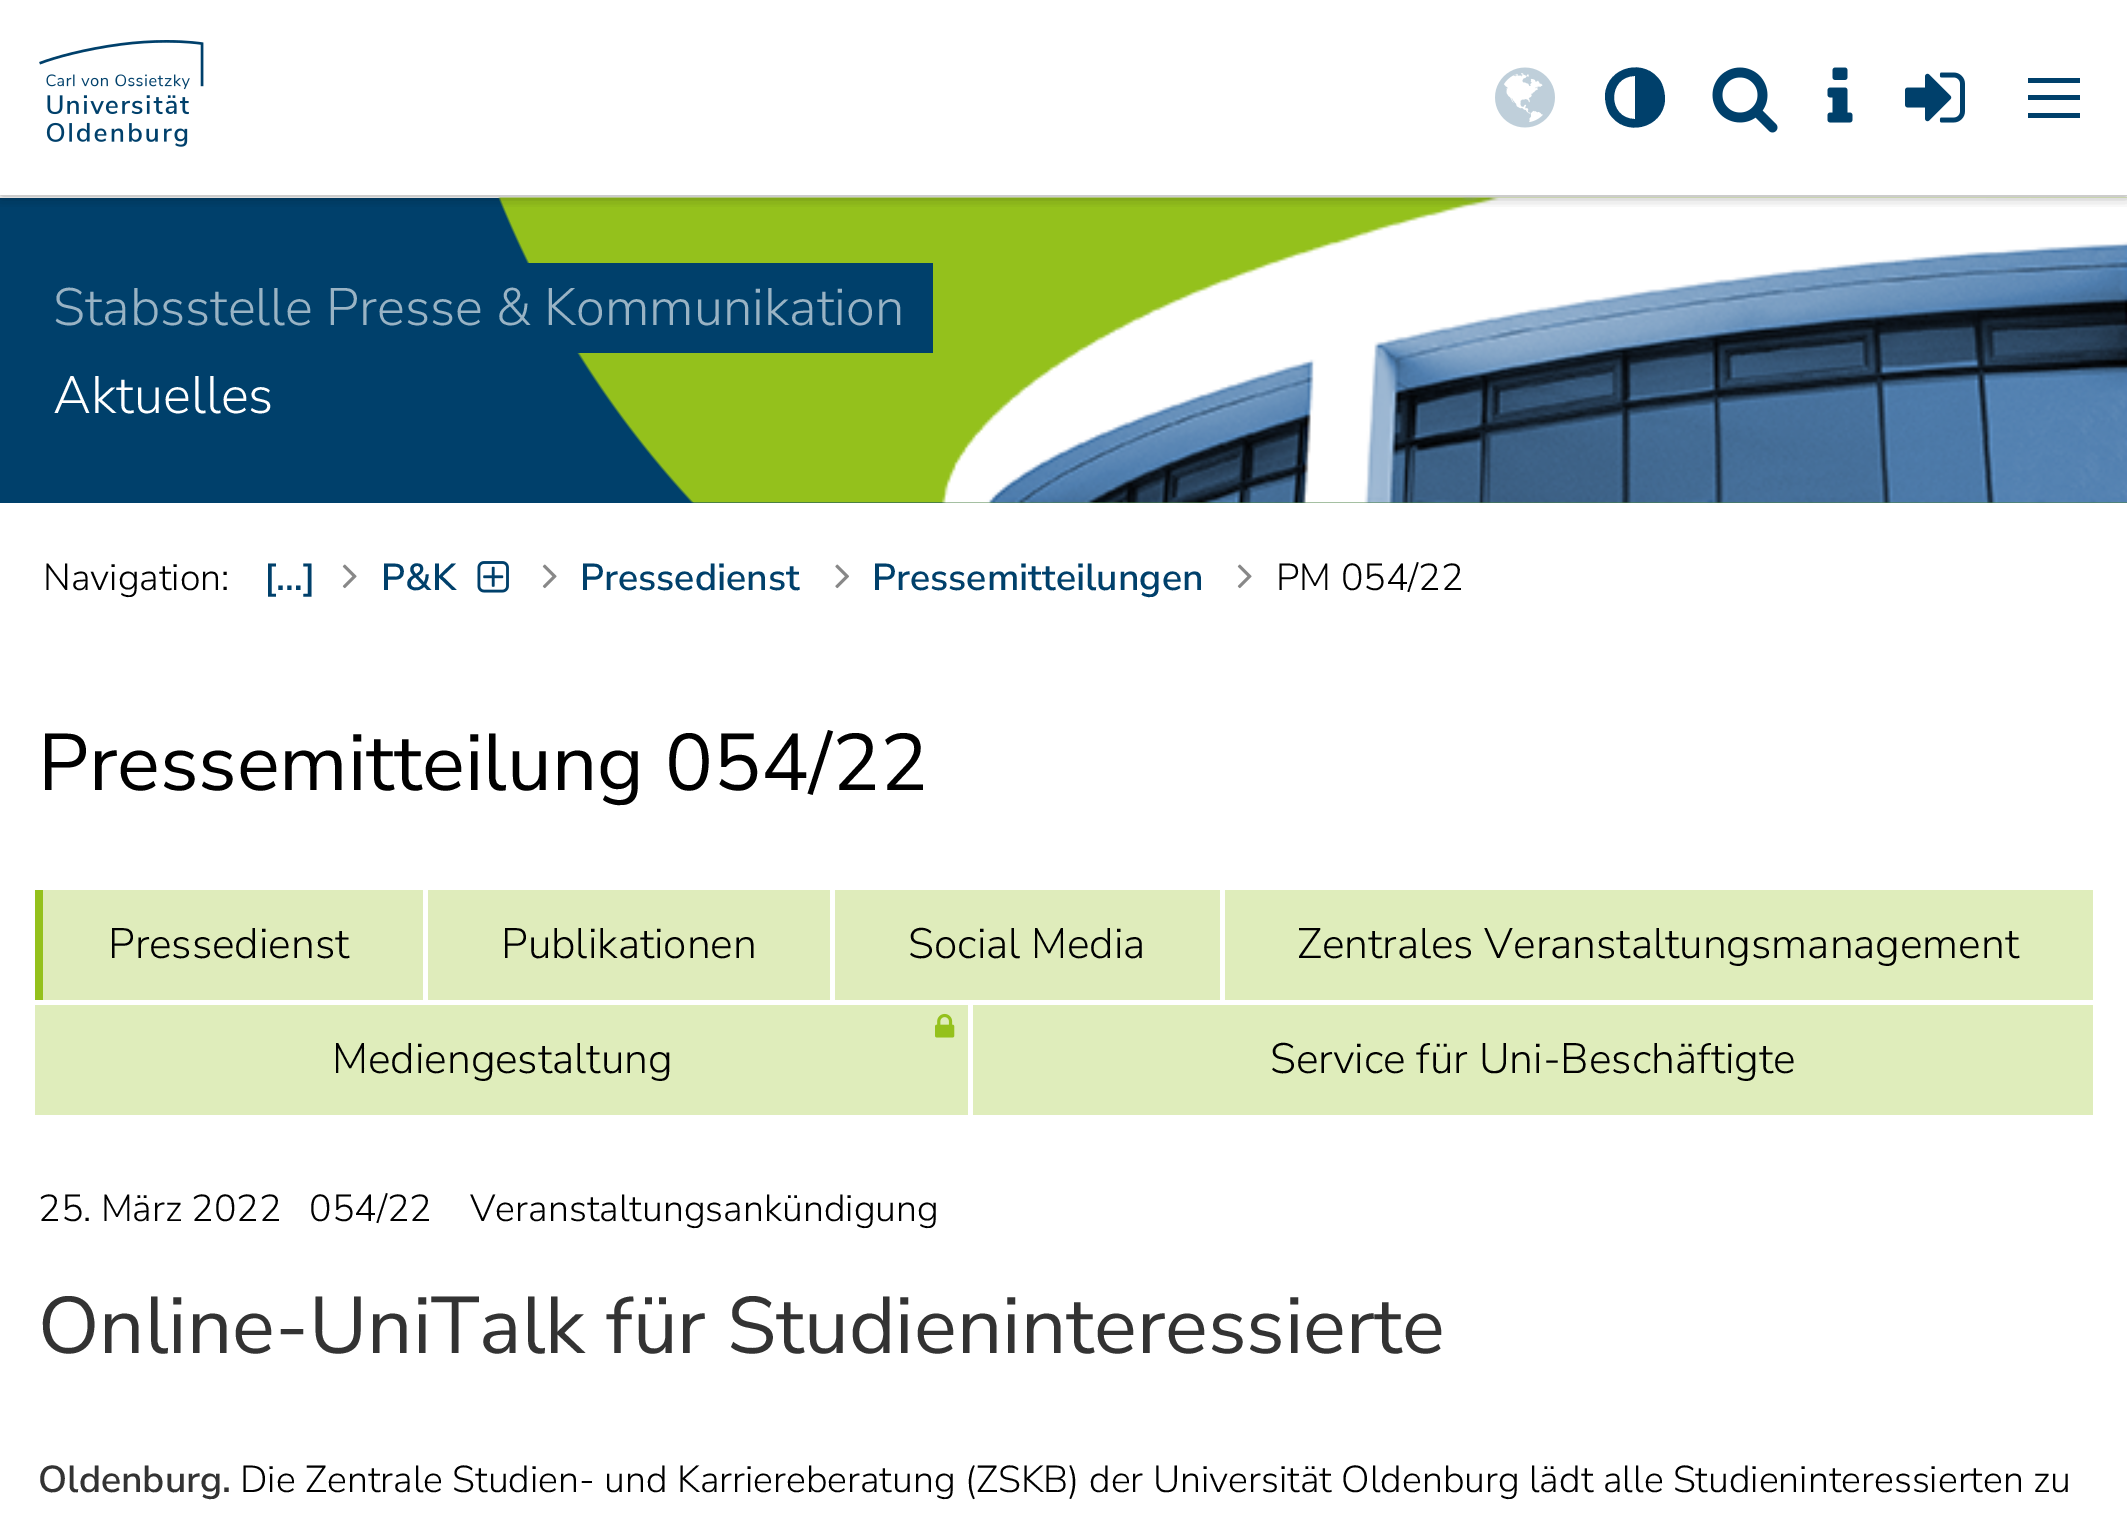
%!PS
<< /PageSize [2127 1518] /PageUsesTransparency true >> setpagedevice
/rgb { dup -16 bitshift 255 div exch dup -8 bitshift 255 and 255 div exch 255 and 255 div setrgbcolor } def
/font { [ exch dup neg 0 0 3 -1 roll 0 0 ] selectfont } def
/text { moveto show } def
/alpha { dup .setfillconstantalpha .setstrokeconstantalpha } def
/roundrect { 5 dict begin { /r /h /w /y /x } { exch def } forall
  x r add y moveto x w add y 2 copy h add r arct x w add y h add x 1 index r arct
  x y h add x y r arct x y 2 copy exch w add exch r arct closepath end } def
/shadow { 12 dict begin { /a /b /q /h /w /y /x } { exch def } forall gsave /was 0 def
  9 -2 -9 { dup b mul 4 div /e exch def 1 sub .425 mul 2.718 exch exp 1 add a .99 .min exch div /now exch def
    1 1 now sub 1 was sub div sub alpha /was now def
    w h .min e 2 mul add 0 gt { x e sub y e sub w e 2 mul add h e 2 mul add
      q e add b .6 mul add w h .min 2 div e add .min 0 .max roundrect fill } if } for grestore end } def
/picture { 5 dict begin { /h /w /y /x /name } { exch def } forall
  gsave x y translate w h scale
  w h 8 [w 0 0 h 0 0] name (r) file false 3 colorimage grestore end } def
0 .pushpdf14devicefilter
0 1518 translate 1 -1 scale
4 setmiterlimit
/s1 { /NunitoSans-Light 52.5 font 16#99B3C4 rgb } def
/s2 { /NunitoSans-Light 52.5 font 16#FFFFFF rgb } def
/s3 { /NunitoSans-Light 37.5 font 16#000000 rgb } def
/s4 { /NunitoSans-SemiBold 37.5 font 16#00406B rgb } def
/s5 { /NunitoSans-Regular 80 font 16#000000 rgb } def
/s6 { /NunitoSans-Light 42.5 font 16#000000 rgb } def
/s7 { /NunitoSans-Regular 80 font 16#333333 rgb } def
/s8 { /NunitoSans-SemiBold 37.5 font 16#333333 rgb } def
16#FFFFFF rgb
0 0 2127 1518 rectfill
16#00406B rgb
0 198 2127 305 rectfill
(pic6.raw) 498 197 1629 306 picture
gsave
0 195 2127 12 rectclip
16#000000 rgb
0 0 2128 195 0 7.5 0.4 shadow
grestore
(pic1.raw) 39 40 165 107 picture
(pic2.raw) 1495 67 60 61 picture
1635 119 moveto 1635 76 lineto 1607 76 1607 119 1635 119 curveto closepath 1661 82 moveto 1664 88 1665 94 1665 100 curveto 1663 129 1624 138 1609 113 curveto 1606 107 1605 101 1605 95 curveto 1607 66 1646 57 1661 82 curveto closepath fill
(pic3.raw) 1712 67 66 66 picture
(pic4.raw) 1827 67 26 56 picture
(pic5.raw) 1905 72 60 51 picture
2028 95 52 5 rectfill
2028 78 52 5 rectfill
2028 113 52 5 rectfill
527 263 406 90 rectfill
s1
(Stabsstelle Presse & Kommunikation) 53 325 text
s2
(Aktuelles) 53 413 text
s3
(Navigation:) 43 590 text
s4
([…]) 264 590 text
(pic7.raw) 342 564 15 25 picture
(P&K) 381 590 text
(pic8.raw) 477 561 32 32 picture
(pic7.raw) 542 564 15 25 picture
(Pressedienst) 580 590 text
(pic9.raw) 835 564 14 25 picture
(Pressemitteilungen) 872 590 text
(pic7.raw) 1237 564 15 25 picture
s3
(PM 054/22) 1276 590 text
s5
(Pressemitteilung 054/22) 38 790 text
16#DFECBB rgb
43 890 380 110 rectfill
16#94C11C rgb
35 890 8 110 rectfill
s6
(Pressedienst) 108 958 text
16#DFECBB rgb
428 890 402 110 rectfill
s6
(Publikationen) 501 958 text
16#DFECBB rgb
835 890 385 110 rectfill
s6
(Social Media) 908 958 text
16#DFEDBB rgb
1225 890 868 110 rectfill
s6
(Zentrales Veranstaltungsmanagement) 1297 958 text
16#DFEDBB rgb
35 1005 933 110 rectfill
(pic10.raw) 935 1013 20 25 picture
s6
(Mediengestaltung) 332 1073 text
16#DFEDBB rgb
973 1005 1120 110 rectfill
s6
(Service für Uni-Beschäftigte) 1270 1073 text
s3
(25. März 2022) 38 1221 text
(054/22) 309 1221 text
(Veranstaltungsankündigung) 470 1221 text
s7
(Online-UniTalk für Studieninteressierte) 38 1353 text
s8
(Oldenburg.) 38 1492 text
s3
(Die Zentrale Studien- und Karriereberatung \(ZSKB\) der Universität Oldenburg lädt alle Studieninteressierten zu) 240 1492 text
.poppdf14devicefilter showpage
